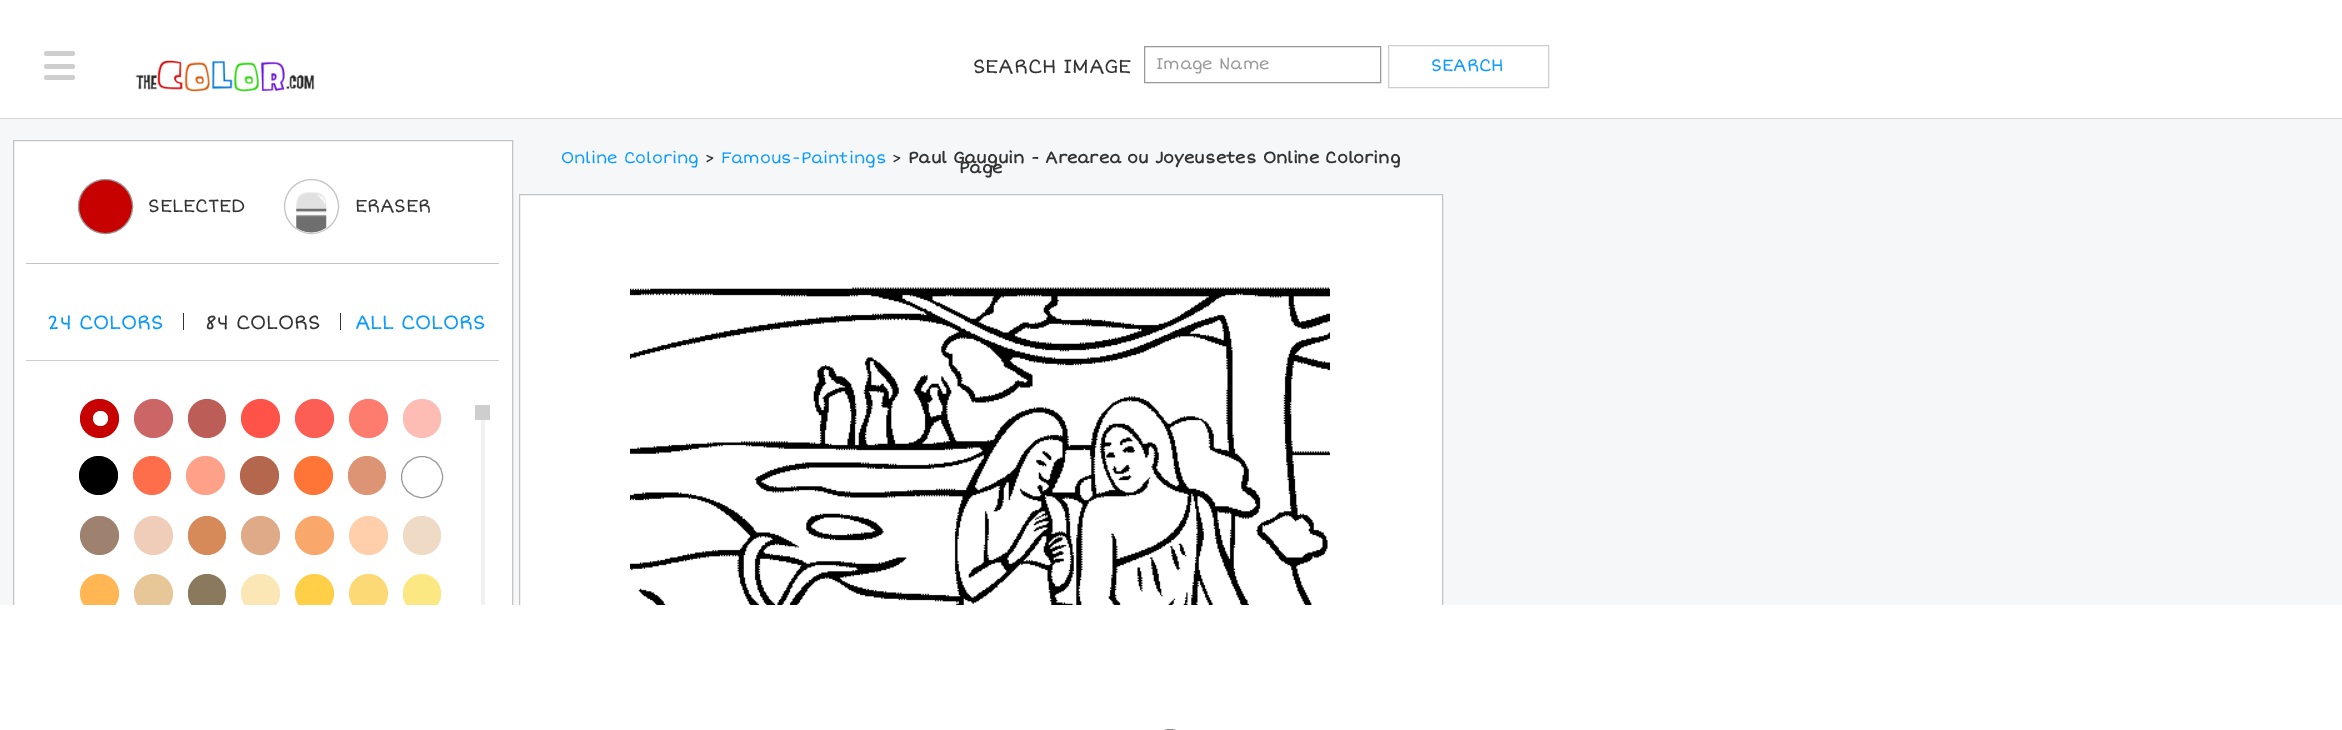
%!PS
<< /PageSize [2342 730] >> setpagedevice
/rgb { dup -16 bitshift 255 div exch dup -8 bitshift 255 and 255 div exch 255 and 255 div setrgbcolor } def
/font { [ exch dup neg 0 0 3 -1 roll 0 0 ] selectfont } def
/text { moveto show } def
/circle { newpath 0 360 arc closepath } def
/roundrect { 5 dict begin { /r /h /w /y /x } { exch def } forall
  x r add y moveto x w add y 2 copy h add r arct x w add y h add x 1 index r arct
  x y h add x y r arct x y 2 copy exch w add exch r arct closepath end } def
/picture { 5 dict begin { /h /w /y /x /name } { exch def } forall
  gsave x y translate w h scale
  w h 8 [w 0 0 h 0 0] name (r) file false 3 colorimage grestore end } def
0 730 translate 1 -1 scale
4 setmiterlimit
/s1 { /ShortStack-Regular 20 font 16#333333 rgb } def
/s2 { /ShortStack-Regular 16.25 font 16#999999 rgb } def
/s3 { /ShortStack-Regular 17.5 font 16#099AFF rgb } def
/s4 { /ShortStack-Regular 16.25 font 16#099AFF rgb } def
/s5 { /ShortStack-Regular 16.25 font 16#333333 rgb } def
/s6 { /ShortStack-Bold 16.25 font 16#333333 rgb } def
/s7 { /ShortStack-Regular 18.75 font 16#333333 rgb } def
/s8 { /ShortStack-Regular 20 font 16#099AFF rgb } def
16#F6F7F9 rgb
0 0 2342 730 rectfill
16#FFFFFF rgb
0 0 2342 118 rectfill
16#D7D7D7 rgb
0 118 2342 1 rectfill
16#CECECE rgb
44 51 31 5 2.5 roundrect fill
44 64 31 5 2.5 roundrect fill
44 75 31 5 2.5 roundrect fill
(pic1.raw) 135 60 180 32 picture
s1
(SEARCH IMAGE) 973 73 text
16#999999 rgb
1144.5 46.5 236 36 rectstroke
s2
(Image Name) 1156 69 text
16#CECECE rgb
1388.5 45.5 160 42 rectstroke
s3
(SEARCH) 1431 71 text
s4
(Online Coloring) 561 163 text
s5
(>) 705 163 text
s4
(Famous-Paintings) 721 163 text
s5
(>) 892 163 text
s6
(Paul Gauguin - Arearea ou Joyeusetes Online Coloring) 908 163 text
(Page) 959 173 text
16#FFFFFF rgb
520 195 922 410 rectfill
16#C3C3C3 rgb
519.5 194.5 923 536 rectstroke
(pic2.raw) 630 287 700 318 picture
16#FFFFFF rgb
14 141 498 464 rectfill
16#C3C3C3 rgb
13.5 140.5 499 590 rectstroke
26 263 473 1 rectfill
16#C70000 rgb
105.5 206.5 27 circle gsave fill grestore
16#999999 rgb
stroke
s7
(SELECTED) 148 212 text
16#C3C3C3 rgb
311.5 206.5 27 circle stroke
(pic3.raw) 296 192 31 41 picture
s7
(ERASER) 355 212 text
16#CECECE rgb
26 360 473 1 rectfill
s8
(24 COLORS) 47 329 text
16#333333 rgb
183 313 1 17 rectfill
(84 COLORS) 205 329 text
340 313 1 17 rectfill
s8
(ALL COLORS) 355 329 text
16#C70000 rgb
99.5 418.5 19.5 circle fill
16#FFFFFF rgb
100.5 418.5 7.5 circle fill
16#CC6666 rgb
153.5 418.5 19.5 circle fill
16#BC5D58 rgb
188 399 38 39 19 roundrect fill
16#FF5349 rgb
260.5 418.5 19.5 circle fill
16#FD5E53 rgb
314.5 418.5 19.5 circle fill
16#FD7C6E rgb
368.5 418.5 19.5 circle fill
16#FDBCB4 rgb
403 399 38 39 19 roundrect fill
16#000000 rgb
98.5 475.5 19.5 circle fill
16#FF6E4A rgb
133 456 38 39 19 roundrect fill
16#FFA089 rgb
205.5 475.5 19.5 circle fill
16#B4674D rgb
259.5 475.5 19.5 circle fill
16#FF7538 rgb
313.5 475.5 19.5 circle fill
16#DD9475 rgb
348 456 38 39 19 roundrect fill
16#999999 rgb
422 477 20.5 circle stroke
16#9F8170 rgb
99.5 535.5 19.5 circle fill
16#EFCDB8 rgb
153.5 535.5 19.5 circle fill
16#D68A59 rgb
188 516 38 39 19 roundrect fill
16#DEAA88 rgb
260.5 535.5 19.5 circle fill
16#FAA76C rgb
314.5 535.5 19.5 circle fill
16#FFCFAB rgb
368.5 535.5 19.5 circle fill
16#EFDBC5 rgb
403 516 38 39 19 roundrect fill
16#FFB653 rgb
99.5 593.5 19.5 circle fill
16#E7C697 rgb
153.5 593.5 19.5 circle fill
16#8A795D rgb
188 574 38 39 19 roundrect fill
16#FAE7B5 rgb
260.5 593.5 19.5 circle fill
16#FFCF48 rgb
314.5 593.5 19.5 circle fill
16#FCD975 rgb
368.5 593.5 19.5 circle fill
16#FCE883 rgb
403 574 38 39 19 roundrect fill
16#F1F1F1 rgb
481 420 4 185 rectfill
16#CECECE rgb
475 405 15 15 rectfill
16#FFFFFF rgb
0 605 2342 125 rectfill
16#F9F9F9 rgb
1156.5 729.5 27 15 13 roundrect stroke
16#888888 rgb
1156.5 729.5 27 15 13 roundrect stroke
showpage
